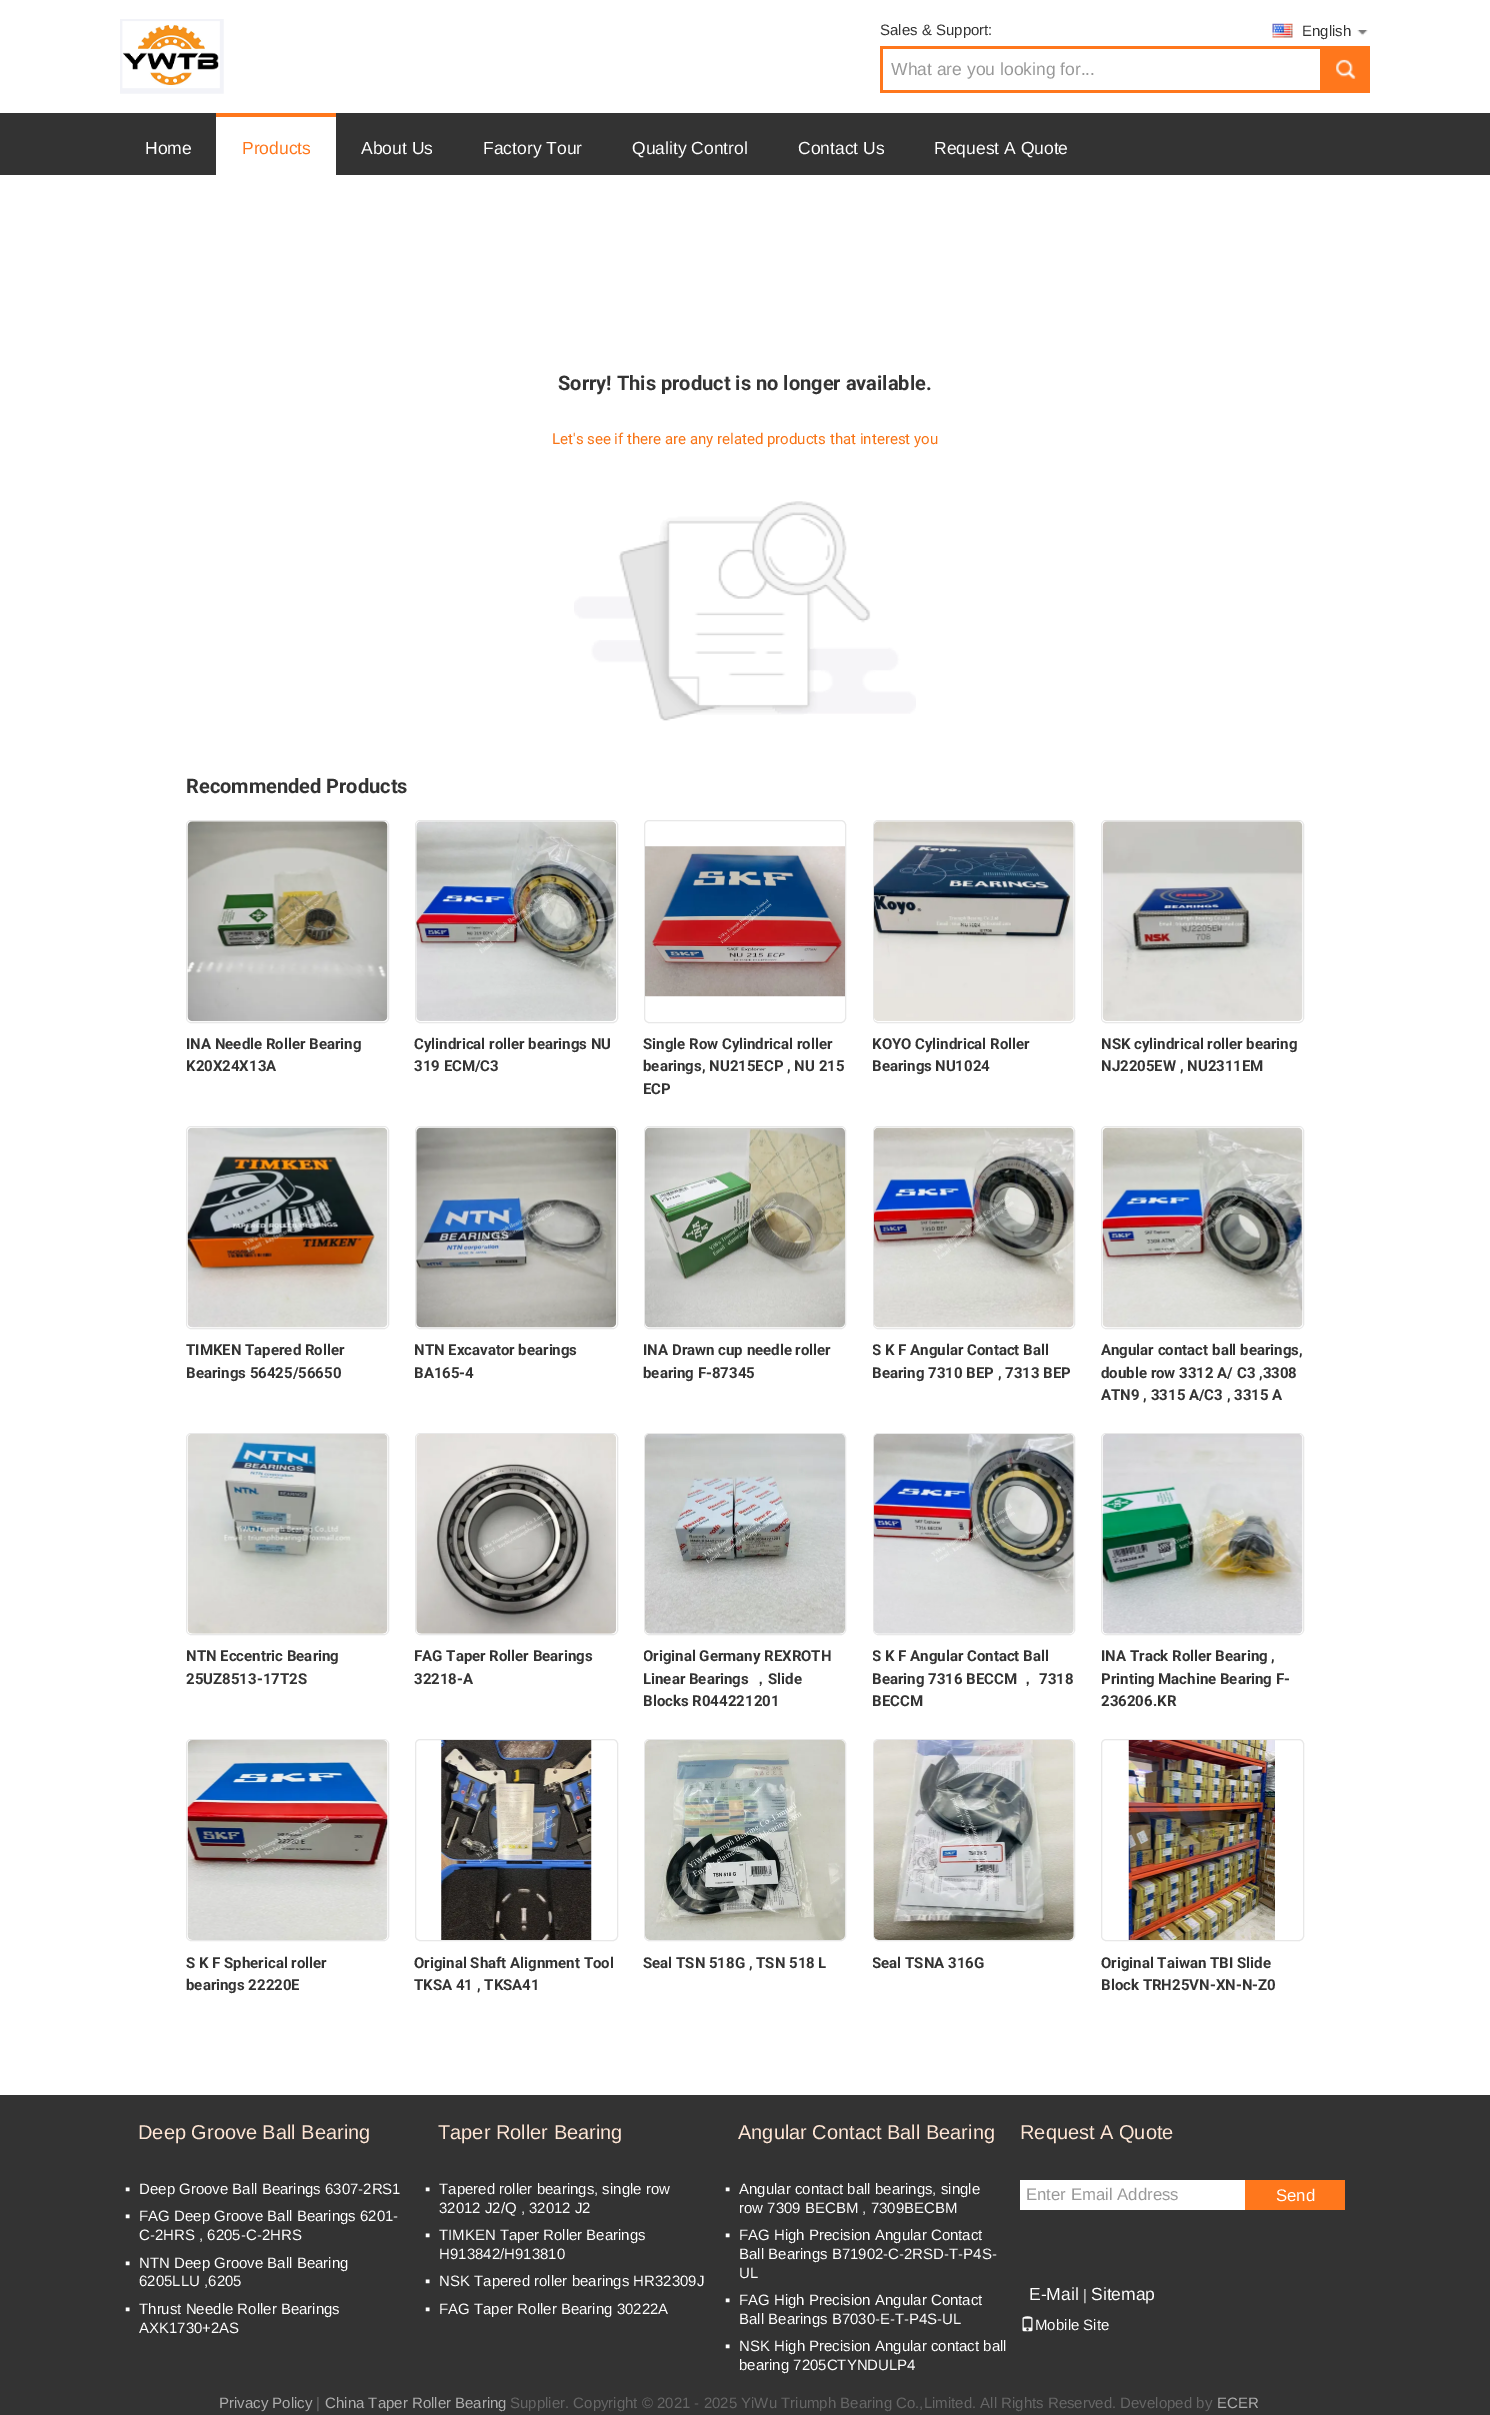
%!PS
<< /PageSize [1490 2415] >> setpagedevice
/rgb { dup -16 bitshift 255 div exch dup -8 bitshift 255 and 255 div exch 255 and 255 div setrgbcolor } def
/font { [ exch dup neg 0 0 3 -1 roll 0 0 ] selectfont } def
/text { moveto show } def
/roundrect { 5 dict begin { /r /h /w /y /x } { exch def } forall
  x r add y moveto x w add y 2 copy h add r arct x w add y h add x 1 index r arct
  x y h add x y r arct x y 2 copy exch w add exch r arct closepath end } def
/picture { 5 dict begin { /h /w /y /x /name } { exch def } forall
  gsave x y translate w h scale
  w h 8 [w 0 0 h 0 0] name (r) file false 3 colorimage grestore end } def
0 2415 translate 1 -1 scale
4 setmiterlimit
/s1 { /LiberationSans-Regular 15 font 16#333333 rgb } def
/s2 { /LiberationSans-Regular 17.5 font 16#999999 rgb } def
/s3 { /LiberationSans-Regular 17.5 font 16#FFFFFF rgb } def
/s4 { /LiberationSans-Regular 17.5 font 16#FF771C rgb } def
/s5 { /Roboto-Bold 20 font 16#333333 rgb } def
/s6 { /Roboto-Regular 15 font 16#F87416 rgb } def
/s7 { /Roboto-Bold 15 font 16#333333 rgb } def
/s8 { /WenQuanYiZenHei-Bold 15 font 16#333333 rgb } def
/s9 { /LiberationSans-Regular 20 font 16#FFE6D5 rgb } def
/s10 { /LiberationSans-Regular 15 font 16#FFFFFF rgb } def
/s11 { /LiberationSans-Regular 16.75 font 16#999999 rgb } def
/s12 { /LiberationSans-Regular 16.75 font 16#FFFFFF rgb } def
/s13 { /LiberationSans-Regular 15 font 16#DDDDDD rgb } def
/s14 { /LiberationSans-Regular 15 font 16#ADADAD rgb } def
/s15 { /LiberationSans-Regular 15 font 16#666666 rgb } def
16#FFFFFF rgb
0 0 1490 2415 rectfill
(pic1.raw) 120 19 104 75 picture
s1
(Sales & Support:) 880 35 text
(pic2.raw) 1272 23 21 15 picture
(English) 1302 36 text
(pic3.raw) 1357 30 11 6 picture
16#FF771C rgb
880 46 440 3 rectfill
880 90 440 3 rectfill
880 46 3 47 rectfill
s2
(What are you looking for...) 891 75 text
16#FF771C rgb
1320 46 50 47 rectfill
(pic4.raw) 1336 59 20 20 picture
16#333333 rgb
0 113 1490 62 rectfill
s3
(Home) 145 154 text
216 117 120 58 rectfill
16#FF771C rgb
216 113 120 4 rectfill
(Products) 242 154 text
s3
(About Us) 361 154 text
(Factory Tour) 483 154 text
(Quality Control) 632 154 text
(Contact Us) 798 154 text
(Request A Quote) 934 154 text
s5
(Sorry! This product is no longer available.) 558 390 text
s6
(Let's see if there are any related products that interest you) 552 444 text
(pic5.raw) 574 501 342 220 picture
s5
(Recommended Products) 186 793 text
16#E8E8E8 rgb
186.5 820.5 202 202 4.5 roundrect stroke
(pic6.raw) 187 821 201 201 picture
s7
(INA Needle Roller Bearing) 186 1049 text
(K20X24X13A) 186 1071 text
16#E8E8E8 rgb
415.5 820.5 202 202 4.5 roundrect stroke
(pic7.raw) 416 821 201 200 picture
s7
(Cylindrical roller bearings NU) 414 1049 text
(319 ECM/C3) 414 1071 text
16#E8E8E8 rgb
644.5 820.5 201 202 4.5 roundrect stroke
(pic8.raw) 645 846 200 151 picture
s7
(Single Row Cylindrical roller) 643 1049 text
(bearings, NU215ECP , NU 215) 643 1071 text
(ECP) 643 1094 text
16#E8E8E8 rgb
873.5 820.5 201 202 4.5 roundrect stroke
(pic9.raw) 873 821 201 200 picture
gsave
873 1033 202 45 rectclip
s7
(KOYO) 872 1049 text
grestore
s7
(Cylindrical Roller) 915 1049 text
gsave
873 1033 202 45 rectclip
(Bearings) 872 1071 text
grestore
(NU1024) 935 1071 text
16#E8E8E8 rgb
1101.5 820.5 202 202 4.5 roundrect stroke
(pic10.raw) 1102 821 201 200 picture
s7
(NSK cylindrical roller bearing) 1101 1049 text
(NJ2205EW , NU2311EM) 1101 1071 text
16#E8E8E8 rgb
186.5 1126.5 202 202 4.5 roundrect stroke
(pic11.raw) 187 1127 201 201 picture
s7
(TIMKEN Tapered Roller) 186 1355 text
(Bearings 56425/56650) 186 1378 text
16#E8E8E8 rgb
415.5 1126.5 202 202 4.5 roundrect stroke
(pic12.raw) 416 1127 201 201 picture
s7
(NTN Excavator bearings) 414 1355 text
(BA165-4) 414 1378 text
16#E8E8E8 rgb
644.5 1126.5 201 202 4.5 roundrect stroke
(pic13.raw) 645 1127 200 201 picture
s7
(INA Drawn cup needle roller) 643 1355 text
(bearing F-87345) 643 1378 text
16#E8E8E8 rgb
873.5 1126.5 201 202 4.5 roundrect stroke
(pic14.raw) 873 1127 201 201 picture
gsave
873 1339 202 45 rectclip
s7
(S K F Angular Contact Ball) 872 1355 text
(Bearing) 872 1378 text
grestore
s7
(7310 BEР , 7313 BEР) 928 1378 text
16#E8E8E8 rgb
1101.5 1126.5 202 202 4.5 roundrect stroke
(pic15.raw) 1102 1127 201 201 picture
s7
(Angular contact ball bearings,) 1101 1355 text
(double row 3312 A/ C3 ,3308) 1101 1378 text
(ATN9 , 3315 A/C3 , 3315 A) 1101 1400 text
16#E8E8E8 rgb
186.5 1433.5 202 201 4.5 roundrect stroke
(pic16.raw) 187 1434 201 200 picture
s7
(NTN Eccentric Bearing) 186 1661 text
(25UZ8513-17T2S) 186 1684 text
16#E8E8E8 rgb
415.5 1433.5 202 201 4.5 roundrect stroke
(pic17.raw) 416 1434 201 200 picture
s7
(FAG Taper Roller Bearings) 414 1661 text
(32218-A) 414 1684 text
16#E8E8E8 rgb
644.5 1433.5 201 201 4.5 roundrect stroke
(pic18.raw) 645 1434 200 200 picture
gsave
644 1645 202 68 rectclip
s7
(Original Germany REXROTH) 643 1661 text
grestore
s7
(Linear Bearings) 643 1684 text
s8
(，) 753 1684 text
s7
(Slide) 768 1684 text
(Blocks R044221201) 643 1706 text
16#E8E8E8 rgb
873.5 1433.5 201 201 4.5 roundrect stroke
(pic19.raw) 873 1434 201 200 picture
gsave
873 1645 202 68 rectclip
s7
(S K F Angular Contact Ball) 872 1661 text
(Bearing) 872 1684 text
grestore
s7
(7316 BECCM) 928 1684 text
s8
(，) 1020 1684 text
s7
(7318) 1039 1684 text
gsave
873 1645 202 68 rectclip
(BECCM) 872 1706 text
grestore
16#E8E8E8 rgb
1101.5 1433.5 202 201 4.5 roundrect stroke
(pic20.raw) 1102 1434 201 200 picture
s7
(INA Track Roller Bearing ,) 1101 1661 text
(Printing Machine Bearing F-) 1101 1684 text
(236206.KR) 1101 1706 text
16#E8E8E8 rgb
186.5 1739.5 202 201 4.5 roundrect stroke
(pic21.raw) 187 1740 201 200 picture
s7
(S K F Spherical roller) 186 1968 text
(bearings 22220E) 186 1990 text
16#E8E8E8 rgb
415.5 1739.5 202 201 4.5 roundrect stroke
(pic22.raw) 441 1740 151 200 picture
s7
(Original Shaft Alignment Tool) 414 1968 text
(TKSA 41 , TKSA41) 414 1990 text
16#E8E8E8 rgb
644.5 1739.5 201 201 4.5 roundrect stroke
(pic23.raw) 645 1740 200 200 picture
s7
(Seal TSN 518G , TSN 518 L) 643 1968 text
16#E8E8E8 rgb
873.5 1739.5 201 201 4.5 roundrect stroke
(pic24.raw) 873 1740 201 200 picture
gsave
873 1951 202 23 rectclip
s7
(Seal) 872 1968 text
grestore
s7
(TSNA 316G) 905 1968 text
16#E8E8E8 rgb
1101.5 1739.5 202 201 4.5 roundrect stroke
(pic25.raw) 1128 1740 147 200 picture
s7
(Original Taiwan TBI Slide) 1101 1968 text
(Block TRH25VN-XN-N-Z0) 1101 1990 text
0 2095 1490 320 rectfill
s9
(Deep Groove Ball Bearing) 138 2139 text
s10
(▪) 125 2194 text
(Deep Groove Ball Bearings 6307-2RS1) 139 2194 text
(▪) 125 2221 text
(FAG Deep Groove Ball Bearings 6201-) 139 2221 text
(C-2HRS , 6205-C-2HRS) 139 2240 text
(▪) 125 2268 text
(NTN Deep Groove Ball Bearing) 139 2268 text
(6205LLU ,6205) 139 2286 text
(▪) 125 2314 text
(Thrust Needle Roller Bearings) 139 2314 text
(AXK1730+2AS) 139 2333 text
s9
(Taper Roller Bearing) 438 2139 text
s10
(▪) 425 2194 text
(Tapered roller bearings, single row) 439 2194 text
(32012 J2/Q , 32012 J2) 439 2213 text
(▪) 425 2240 text
(TIMKEN Taper Roller Bearings) 439 2240 text
(H913842/H913810) 439 2259 text
(▪) 425 2286 text
(NSK Tapered roller bearings HR32309J) 439 2286 text
(▪) 425 2314 text
(FAG Taper Roller Bearing 30222A) 439 2314 text
s9
(Angular Contact Ball Bearing) 738 2139 text
s10
(▪) 725 2194 text
(Angular contact ball bearings, single) 739 2194 text
(row 7309 BECBM , 7309BECBM) 739 2213 text
(▪) 725 2240 text
(FAG High Precision Angular Contact) 739 2240 text
(Ball Bearings B71902-C-2RSD-T-P4S-) 739 2259 text
(UL) 739 2278 text
(▪) 725 2305 text
(FAG High Precision Angular Contact) 739 2305 text
(Ball Bearings B7030-E-T-P4S-UL) 739 2324 text
(▪) 725 2351 text
(NSK High Precision Angular contact ball) 739 2351 text
(bearing 7205CTYNDULP4) 739 2370 text
s9
(Request A Quote) 1020 2139 text
16#FFFFFF rgb
1020 2180 225 30 rectfill
s11
(Enter Email Address) 1026 2200 text
16#FF771C rgb
1245 2180 100 30 rectfill
s12
(Send) 1276 2201 text
s3
(E-Mail) 1029 2300 text
s13
(|) 1083 2300 text
s3
(Sitemap) 1091 2300 text
(pic26.raw) 1022 2316 11 16 picture
s10
(Mobile Site) 1035 2330 text
s14
(Privacy Policy) 219 2408 text
s15
(|) 316 2408 text
s14
(China Taper Roller Bearing) 325 2408 text
s15
(Supplier. Copyright © 2021 - 2025 YiWu Triumph Bearing Co.,Limited. All Rights Reserved. Developed by) 510 2408 text
s14
(ECER) 1217 2408 text
showpage
